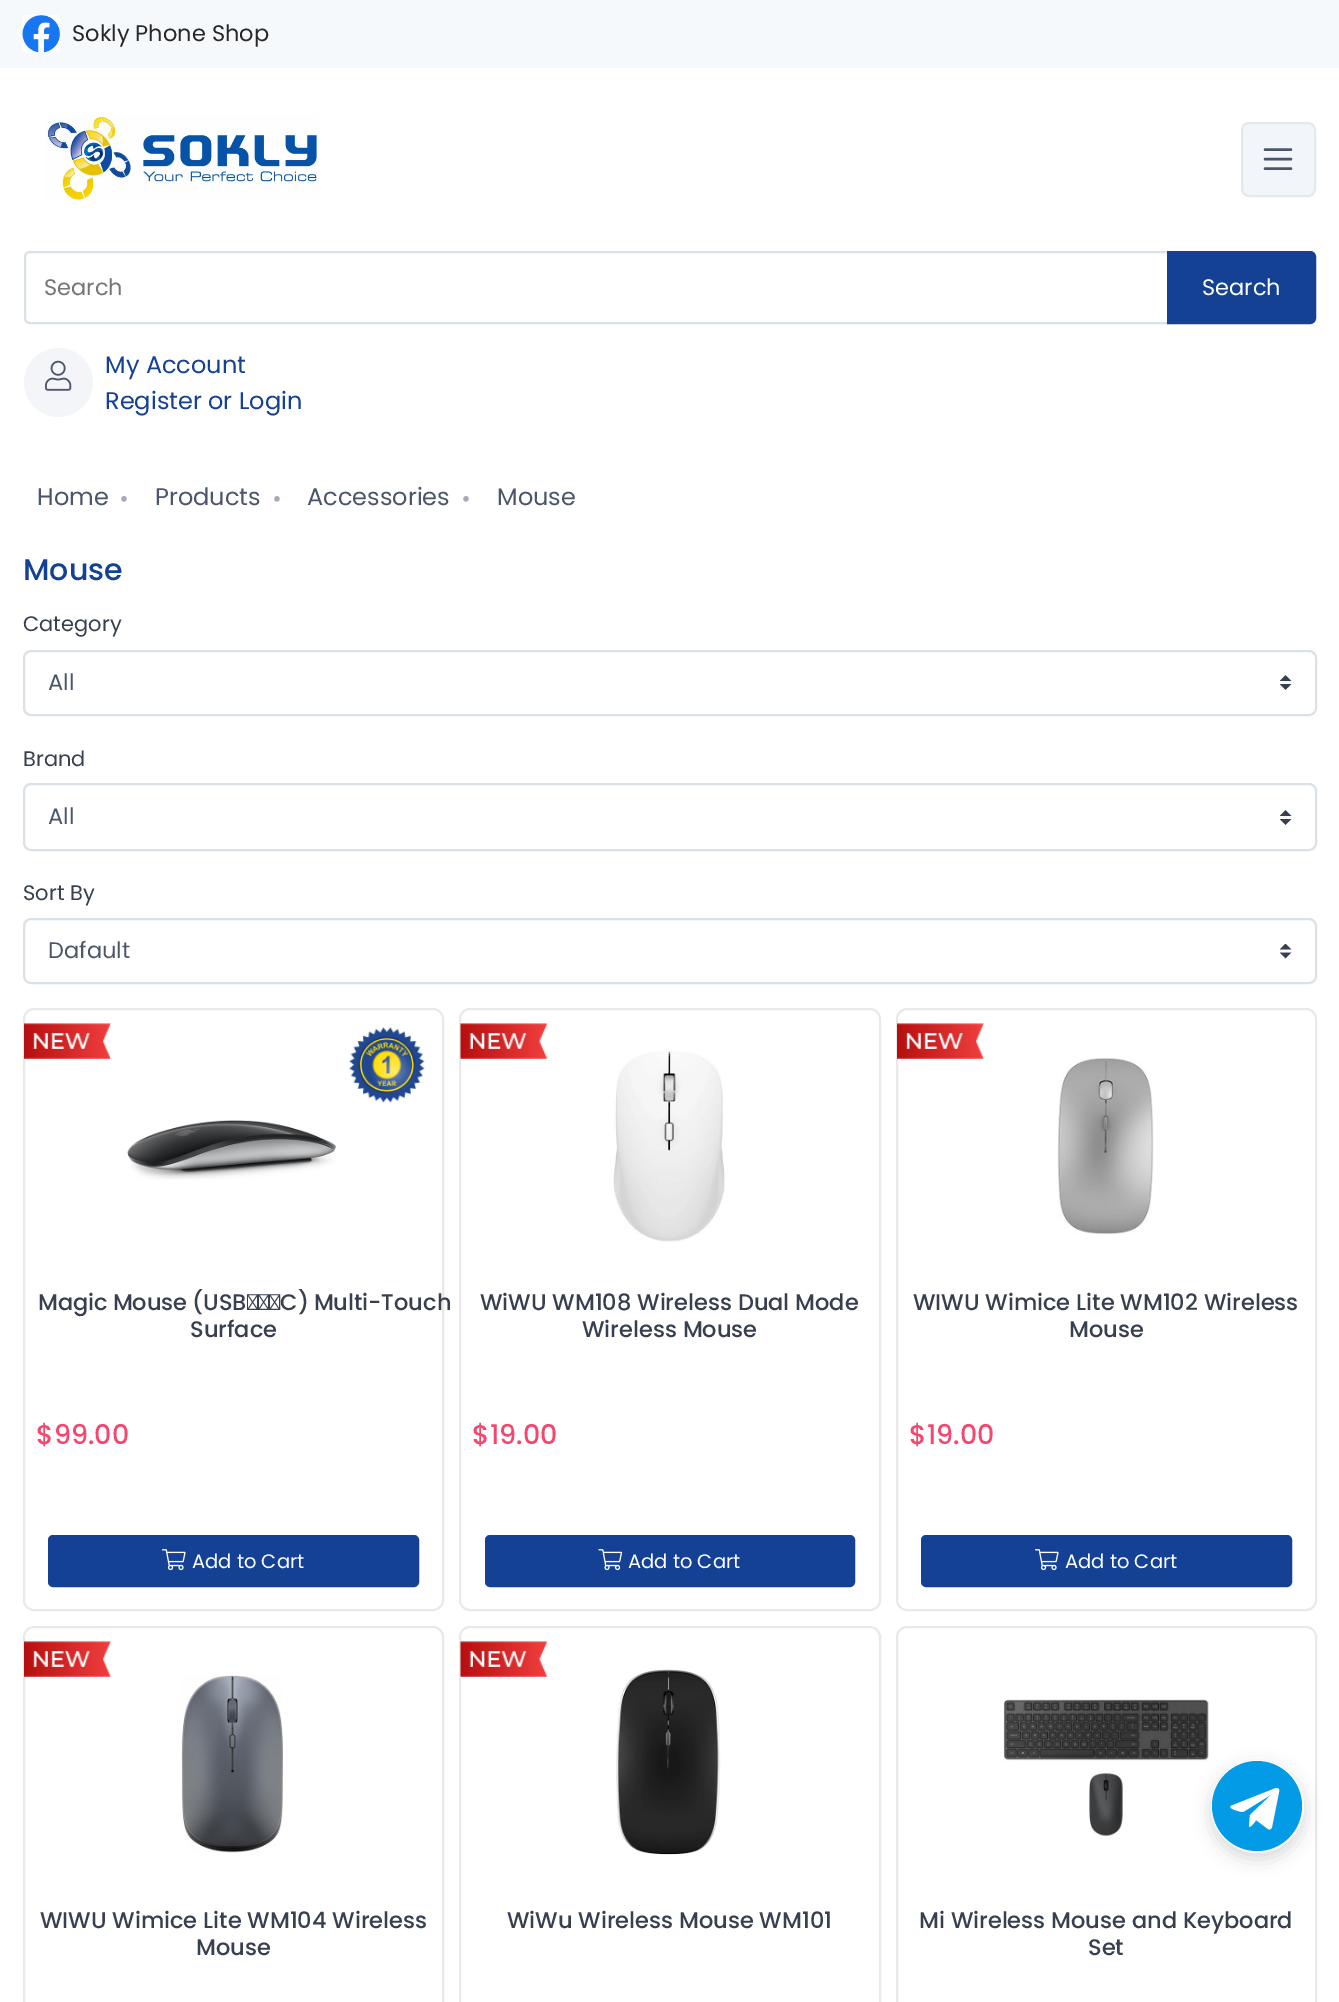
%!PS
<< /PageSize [1339 2002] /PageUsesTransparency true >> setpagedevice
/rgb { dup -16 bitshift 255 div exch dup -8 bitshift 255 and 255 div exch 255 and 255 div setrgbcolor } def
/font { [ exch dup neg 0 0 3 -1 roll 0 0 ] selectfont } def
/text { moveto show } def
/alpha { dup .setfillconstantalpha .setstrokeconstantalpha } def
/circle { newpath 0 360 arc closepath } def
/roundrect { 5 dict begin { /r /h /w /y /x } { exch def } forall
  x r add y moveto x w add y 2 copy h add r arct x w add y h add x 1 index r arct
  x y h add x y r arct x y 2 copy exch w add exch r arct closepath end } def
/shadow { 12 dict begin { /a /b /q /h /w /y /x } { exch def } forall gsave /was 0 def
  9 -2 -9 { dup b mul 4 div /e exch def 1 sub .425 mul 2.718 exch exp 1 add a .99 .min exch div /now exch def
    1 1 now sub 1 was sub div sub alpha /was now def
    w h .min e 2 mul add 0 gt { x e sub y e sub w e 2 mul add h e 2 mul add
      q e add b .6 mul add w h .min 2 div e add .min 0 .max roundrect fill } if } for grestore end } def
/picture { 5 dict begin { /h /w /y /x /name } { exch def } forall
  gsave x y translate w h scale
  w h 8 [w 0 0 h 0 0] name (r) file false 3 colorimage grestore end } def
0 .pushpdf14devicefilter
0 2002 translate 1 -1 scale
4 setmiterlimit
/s1 { /Poppins-Regular 22.5 font 16#282828 rgb } def
/s2 { /Poppins-Regular 22.5 font 16#757575 rgb } def
/s3 { /Poppins-Regular 22.5 font 16#FFFFFF rgb } def
/s4 { /Poppins-Regular 24 font 16#144194 rgb } def
/s5 { /Poppins-Regular 24 font 16#4B566B rgb } def
/s6 { /LiberationSerif-Regular 48 font 16#A6ACB7 rgb } def
/s7 { /Poppins-Medium 30 font 16#144194 rgb } def
/s8 { /Poppins-Regular 21 font 16#373F50 rgb } def
/s9 { /Poppins-Regular 22.5 font 16#4B566B rgb } def
/s10 { /Poppins-Medium 22.5 font 16#373F50 rgb } def
/s11 { /Poppins-Medium 27 font 16#F34770 rgb } def
/s12 { /Poppins-Regular 19.5 font 16#FFFFFF rgb } def
16#FFFFFF rgb
0 0 1339 2002 rectfill
16#F6F9FC rgb
0 0 1339 68 rectfill
(pic1.raw) 22 15 38 38 picture
s1
(Sokly Phone Shop) 72 41 text
(pic2.raw) 45 115 274 86 picture
16#F2F5F9 rgb
1242 123 73 73 7 roundrect gsave fill grestore
16#E3E9EF rgb
2 setlinewidth
stroke
16#4B566B rgb
2.4 setlinewidth
1 setlinecap
1265 149.5 moveto 1291 149.5 lineto 1265 159 moveto 1291 159 lineto 1265 168.5 moveto 1291 168.5 lineto stroke
16#DAE1E7 rgb
2 setlinewidth
0 setlinecap
30 252 moveto 1168 252 lineto 1168 323 lineto 30 323 lineto 27 323 25 321 25 318 curveto 25 257 lineto 25 254 27 252 30 252 curveto closepath stroke
s2
(Search) 44 295 text
16#144194 rgb
1168 252 moveto 1310 252 lineto 1313 252 1315 254 1315 257 curveto 1315 318 lineto 1315 321 1313 323 1310 323 curveto 1168 323 lineto closepath gsave fill grestore
stroke
s3
(Search) 1202 295 text
16#F3F5F9 rgb
58.5 382.5 34.5 circle fill
(pic3.raw) 45 360 27 31 picture
s4
(My Account) 105 373 text
(Register or Login) 105 409 text
s5
(Home) 37 505 text
s6
(.) 118 501 text
s5
(Products) 155 505 text
s6
(.) 271 501 text
s5
(Accessories) 307 505 text
s6
(.) 460 501 text
s5
(Mouse) 497 505 text
s7
(Mouse) 23 580 text
s8
(Category) 23 631 text
(pic4.raw) 1280 675 12 15 picture
16#DAE1E7 rgb
24 651 1292 64 7 roundrect stroke
s9
(All) 48 690 text
s8
(Brand) 23 766 text
(pic4.raw) 1280 810 12 15 picture
16#DAE1E7 rgb
24 784 1292 66 7 roundrect stroke
s9
(All) 48 824 text
s8
(Sort By) 23 900 text
(pic5.raw) 1280 944 12 15 picture
16#DAE1E7 rgb
24 919 1292 64 7 roundrect stroke
s9
(Dafault) 48 958 text
16#E9E9E9 rgb
24 1009 419 601 10 roundrect stroke
(pic6.raw) 24 1023 87 36 picture
(pic7.raw) 349 1027 76 76 picture
(pic8.raw) 127 1120 209 60 picture
/Poppins-Medium 22.5 font
16#373F50 rgb
38 1310 moveto -1 0 32 (Magic Mouse \(USB‑C\) Multi-Touch) widthshow
(Surface) 190 1337 text
s11
($99.00) 36 1444 text
16#144194 rgb
49 1536 369 50 4 roundrect gsave fill grestore
stroke
(pic9.raw) 162 1549 24 22 picture
s12
(Add to Cart) 192 1568 text
16#E9E9E9 rgb
460 1009 420 601 10 roundrect stroke
(pic10.raw) 460 1023 88 36 picture
(pic11.raw) 613 1051 112 191 picture
s10
(WiWU WM108 Wireless Dual Mode) 480 1310 text
(Wireless Mouse) 582 1337 text
s11
($19.00) 472 1444 text
16#144194 rgb
486 1536 368 50 4 roundrect gsave fill grestore
stroke
(pic12.raw) 598 1549 25 22 picture
s12
(Add to Cart) 628 1568 text
16#E9E9E9 rgb
897 1009 419 601 10 roundrect stroke
(pic6.raw) 897 1023 87 36 picture
(pic13.raw) 1057 1057 97 178 picture
s10
(WIWU Wimice Lite WM102 Wireless) 913 1310 text
(Mouse) 1069 1337 text
s11
($19.00) 909 1444 text
16#144194 rgb
922 1536 369 50 4 roundrect gsave fill grestore
stroke
(pic9.raw) 1035 1549 24 22 picture
s12
(Add to Cart) 1065 1568 text
16#E9E9E9 rgb
24 1627 419 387 10 roundrect stroke
(pic6.raw) 24 1641 87 36 picture
(pic14.raw) 181 1675 102 178 picture
s10
(WIWU Wimice Lite WM104 Wireless) 40 1928 text
(Mouse) 196 1955 text
16#E9E9E9 rgb
460 1627 420 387 10 roundrect stroke
(pic10.raw) 460 1641 88 36 picture
(pic15.raw) 616 1669 105 186 picture
s10
(WiWu Wireless Mouse WM101) 507 1928 text
16#E9E9E9 rgb
897 1627 419 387 10 roundrect stroke
(pic16.raw) 1003 1699 206 137 picture
s10
(Mi Wireless Mouse and Keyboard) 919 1928 text
(Set) 1088 1955 text
16#000000 rgb
1211 1766 93 93 46.5 9 0.15 shadow
16#FFFFFF rgb
1257.5 1806.5 46.5 circle fill
16#039BE5 rgb
1257 1806 45 circle fill
16#FFFFFF rgb
1233 1805 moveto 1276 1788 lineto 1278 1788 1280 1789 1279 1792 curveto 1272 1827 lineto 1271 1829 1270 1830 1268 1829 curveto 1256 1820 lineto 1255 1822 1251 1827 1249 1827 curveto 1250 1815 lineto 1270 1796 lineto 1271 1795 1270 1795 1269 1796 curveto 1243 1812 lineto 1241 1812 1224 1808 1233 1805 curveto closepath fill
.poppdf14devicefilter showpage
